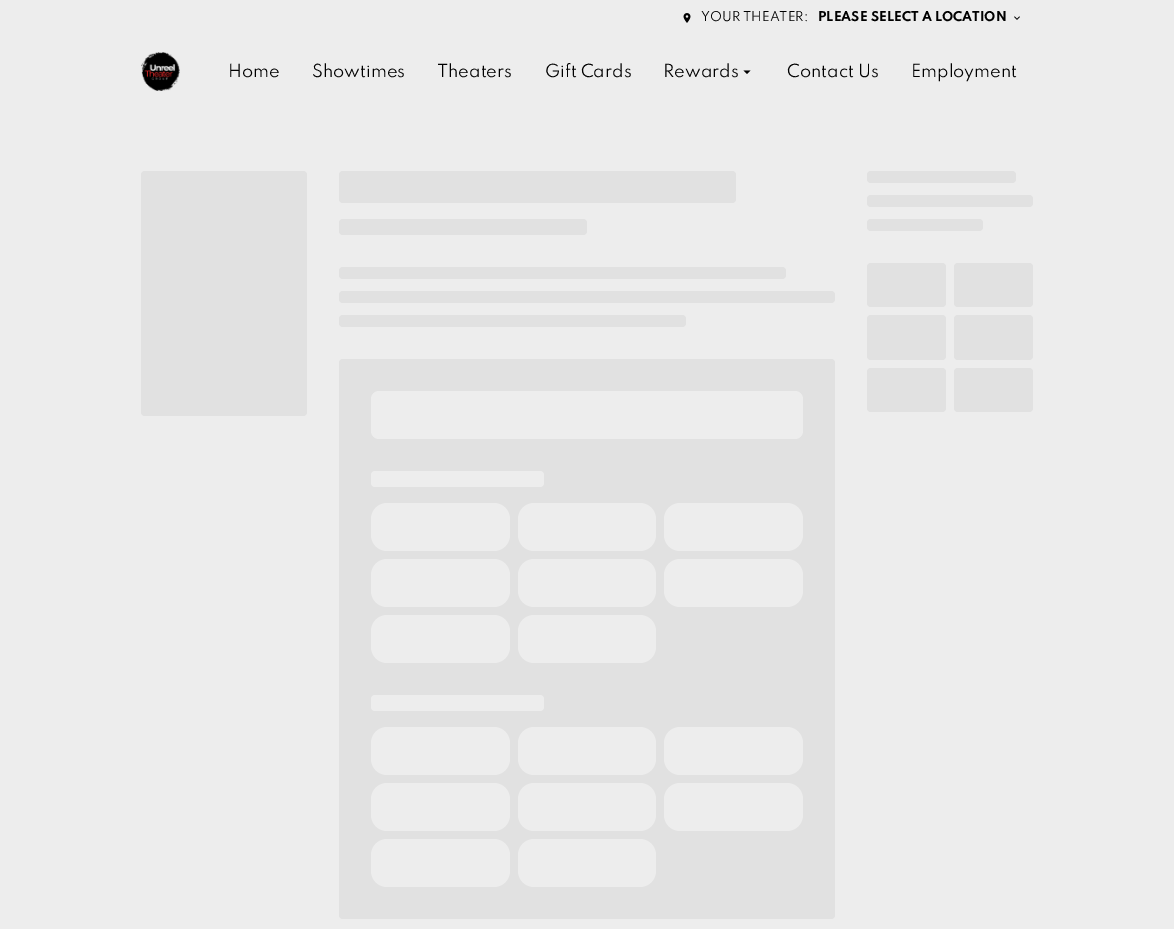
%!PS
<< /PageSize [1174 929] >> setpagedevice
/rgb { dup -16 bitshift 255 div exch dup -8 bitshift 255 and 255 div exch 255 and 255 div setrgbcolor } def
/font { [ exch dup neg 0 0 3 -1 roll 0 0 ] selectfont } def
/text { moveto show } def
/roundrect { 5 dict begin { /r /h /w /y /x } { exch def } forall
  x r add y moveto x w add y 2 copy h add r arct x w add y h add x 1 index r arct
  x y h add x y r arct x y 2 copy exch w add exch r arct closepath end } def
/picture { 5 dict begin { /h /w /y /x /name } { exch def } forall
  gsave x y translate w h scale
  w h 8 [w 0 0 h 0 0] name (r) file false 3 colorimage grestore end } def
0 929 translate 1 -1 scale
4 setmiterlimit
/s1 { /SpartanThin-Thin 12 font 16#000000 rgb } def
/s2 { /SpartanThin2-Thin 12 font 16#000000 rgb } def
/s3 { /SpartanThin-Thin 16 font 16#000000 rgb } def
16#EDEDED rgb
0 0 1174 929 rectfill
(pic1.raw) 683 13 8 10 picture
s1
(YOUR THEATER:) 701 21 text
s2
(PLEASE SELECT A LOCATION) 818 21 text
(pic2.raw) 1014 16 6 4 picture
(pic3.raw) 141 52 39 39 picture
s3
(Home) 228 77 text
(Showtimes) 312 77 text
(Theaters) 437 77 text
(Gift Cards) 545 77 text
(Rewards) 663 77 text
743.5 70.5 moveto 747 74 lineto 750.5 70.5 lineto closepath fill
(Contact Us) 787 77 text
(Employment) 911 77 text
16#E1E1E1 rgb
141 171 166 245 4 roundrect fill
339 171 397 32 4 roundrect fill
339 219 248 16 4 roundrect fill
867 171 149 12 4 roundrect fill
867 195 166 12 4 roundrect fill
867 219 116 12 4 roundrect fill
867 263 79 44 4 roundrect fill
954 263 79 44 4 roundrect fill
867 315 79 45 4 roundrect fill
954 315 79 45 4 roundrect fill
867 368 79 44 4 roundrect fill
954 368 79 44 4 roundrect fill
339 267 447 12 4 roundrect fill
339 291 496 12 4 roundrect fill
339 315 347 12 4 roundrect fill
339 359 496 560 4 roundrect fill
16#EDEDED rgb
371 391 432 48 8 roundrect fill
371 471 173 16 4 roundrect fill
371 503 139 48 16 roundrect fill
518 503 138 48 16 roundrect fill
664 503 139 48 16 roundrect fill
371 559 139 48 16 roundrect fill
518 559 138 48 16 roundrect fill
664 559 139 48 16 roundrect fill
371 615 139 48 16 roundrect fill
518 615 138 48 16 roundrect fill
371 695 173 16 4 roundrect fill
371 727 139 48 16 roundrect fill
518 727 138 48 16 roundrect fill
664 727 139 48 16 roundrect fill
371 783 139 48 16 roundrect fill
518 783 138 48 16 roundrect fill
664 783 139 48 16 roundrect fill
371 839 139 48 16 roundrect fill
518 839 138 48 16 roundrect fill
showpage
